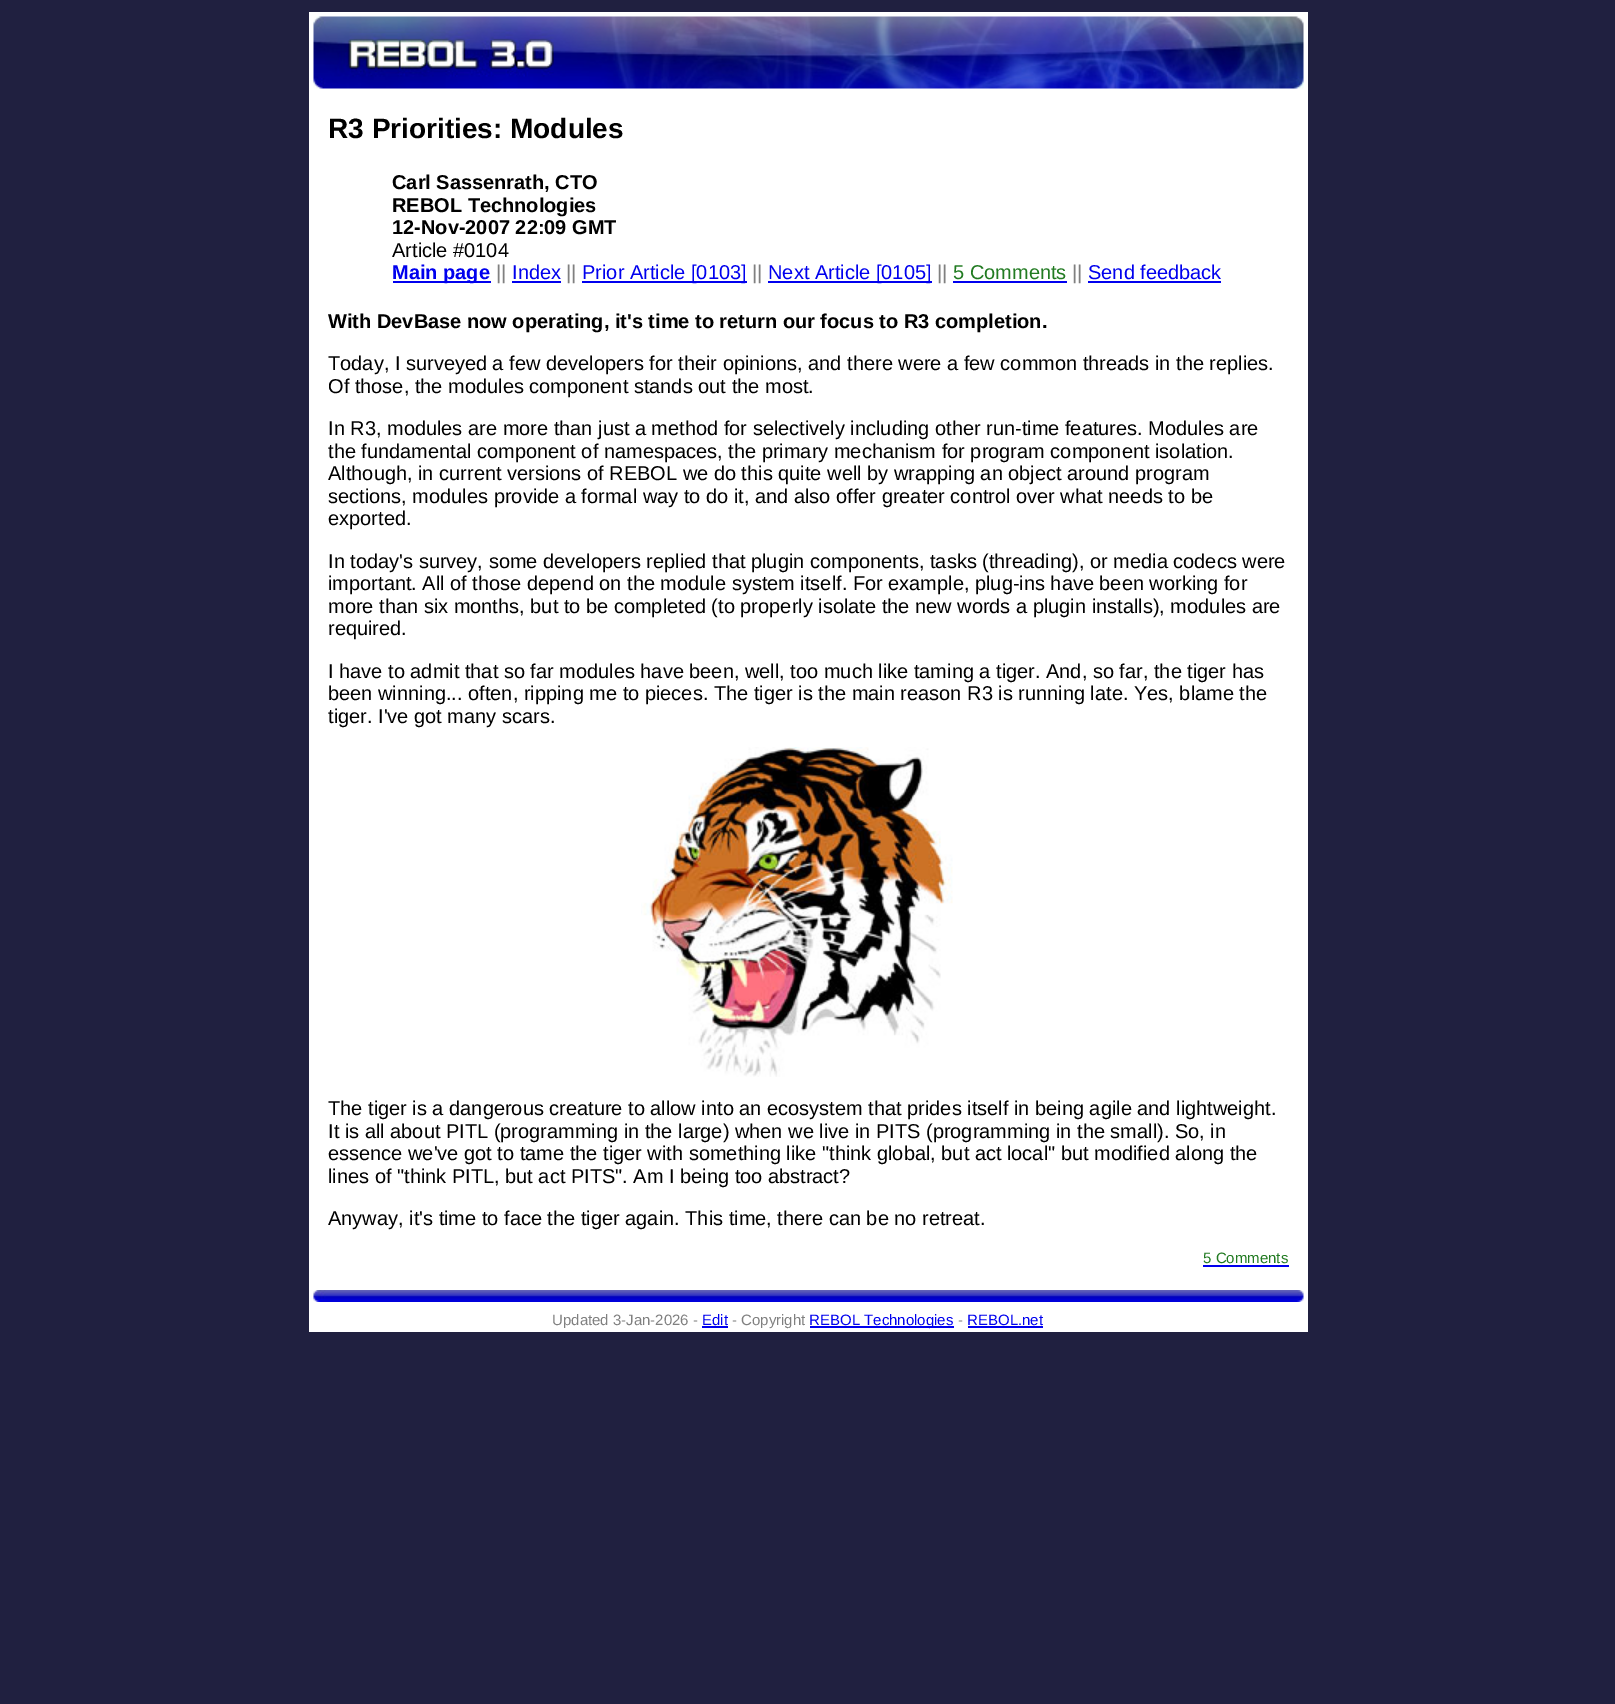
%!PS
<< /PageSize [1615 1704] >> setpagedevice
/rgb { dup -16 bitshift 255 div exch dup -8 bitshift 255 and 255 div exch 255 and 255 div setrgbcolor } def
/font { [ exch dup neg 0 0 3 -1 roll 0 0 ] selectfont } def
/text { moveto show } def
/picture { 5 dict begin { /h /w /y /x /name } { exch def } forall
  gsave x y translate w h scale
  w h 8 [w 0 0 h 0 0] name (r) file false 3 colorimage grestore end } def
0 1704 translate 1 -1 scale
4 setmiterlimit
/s1 { /LiberationSans-Bold 28 font 16#000000 rgb } def
/s2 { /LiberationSans-Bold 20 font 16#000000 rgb } def
/s3 { /LiberationSans-Regular 20 font 16#000000 rgb } def
/s4 { /LiberationSans-Bold 20 font 16#0000EE rgb } def
/s5 { /LiberationSans-Regular 20 font 16#808080 rgb } def
/s6 { /LiberationSans-Regular 20 font 16#0000EE rgb } def
/s7 { /LiberationSans-Regular 20 font 16#227B22 rgb } def
/s8 { /LiberationSans-Regular 15 font 16#227B22 rgb } def
/s9 { /LiberationSans-Regular 15 font 16#808080 rgb } def
/s10 { /LiberationSans-Regular 15 font 16#0000EE rgb } def
16#202040 rgb
0 0 1615 1704 rectfill
16#FFFFFF rgb
309 12 999 1320 rectfill
(pic1.raw) 313 16 991 73 picture
s1
(R3 Priorities: Modules) 328 138 text
s2
(Carl Sassenrath, CTO) 392 189 text
(REBOL Technologies) 392 212 text
(12-Nov-2007 22:09 GMT) 392 234 text
s3
(Article #0104) 392 257 text
16#0000EE rgb
393 281 98 2 rectfill
s4
(Main page) 392 279 text
s5
(||) 496 279 text
s6
(Index) 512 279 text
512 281 49 2 rectfill
s5
(||) 566 279 text
16#0000EE rgb
582 281 165 2 rectfill
(Prior Article [0103]) 582 279 text
s5
(||) 752 279 text
16#0000EE rgb
768 281 164 2 rectfill
(Next Article [0105]) 768 279 text
s5
(||) 937 279 text
s7
(5 Comments) 953 279 text
16#0000EE rgb
953 281 114 2 rectfill
s5
(||) 1072 279 text
s6
(Send feedback) 1088 279 text
1088 281 133 2 rectfill
s2
(With DevBase now operating, it's time to return our focus to R3 completion.) 328 328 text
s3
(Today, I surveyed a few developers for their opinions, and there were a few common threads in the replies.) 328 370 text
(Of those, the modules component stands out the most.) 328 393 text
(In R3, modules are more than just a method for selectively including other run-time features. Modules are) 328 435 text
(the fundamental component of namespaces, the primary mechanism for program component isolation.) 328 458 text
(Although, in current versions of REBOL we do this quite well by wrapping an object around program) 328 480 text
(sections, modules provide a formal way to do it, and also offer greater control over what needs to be) 328 503 text
(exported.) 328 525 text
(In today's survey, some developers replied that plugin components, tasks \(threading\), or media codecs were) 328 568 text
(important. All of those depend on the module system itself. For example, plug-ins have been working for) 328 590 text
(more than six months, but to be completed \(to properly isolate the new words a plugin installs\), modules are) 328 613 text
(required.) 328 635 text
(I have to admit that so far modules have been, well, too much like taming a tiger. And, so far, the tiger has) 328 678 text
(been winning... often, ripping me to pieces. The tiger is the main reason R3 is running late. Yes, blame the) 328 700 text
(tiger. I've got many scars.) 328 723 text
(pic2.raw) 641 747 312 330 picture
(The tiger is a dangerous creature to allow into an ecosystem that prides itself in being agile and lightweight.) 328 1115 text
(It is all about PITL \(programming in the large\) when we live in PITS \(programming in the small\). So, in) 328 1138 text
(essence we've got to tame the tiger with something like "think global, but act local" but modified along the) 328 1160 text
(lines of "think PITL, but act PITS". Am I being too abstract?) 328 1183 text
(Anyway, it's time to face the tiger again. This time, there can be no retreat.) 328 1225 text
s8
(5 Comments) 1203 1263 text
16#0000EE rgb
1203 1265 86 2 rectfill
(pic3.raw) 313 1290 991 12 picture
s9
(Updated 3-Jan-2026 -) 552 1325 text
s10
(Edit) 702 1325 text
702 1326 26 2 rectfill
s9
(- Copyright) 732 1325 text
16#0000EE rgb
810 1326 144 2 rectfill
(REBOL Technologies) 809 1325 text
s9
(-) 958 1325 text
s10
(REBOL.net) 967 1325 text
968 1326 75 2 rectfill
showpage
